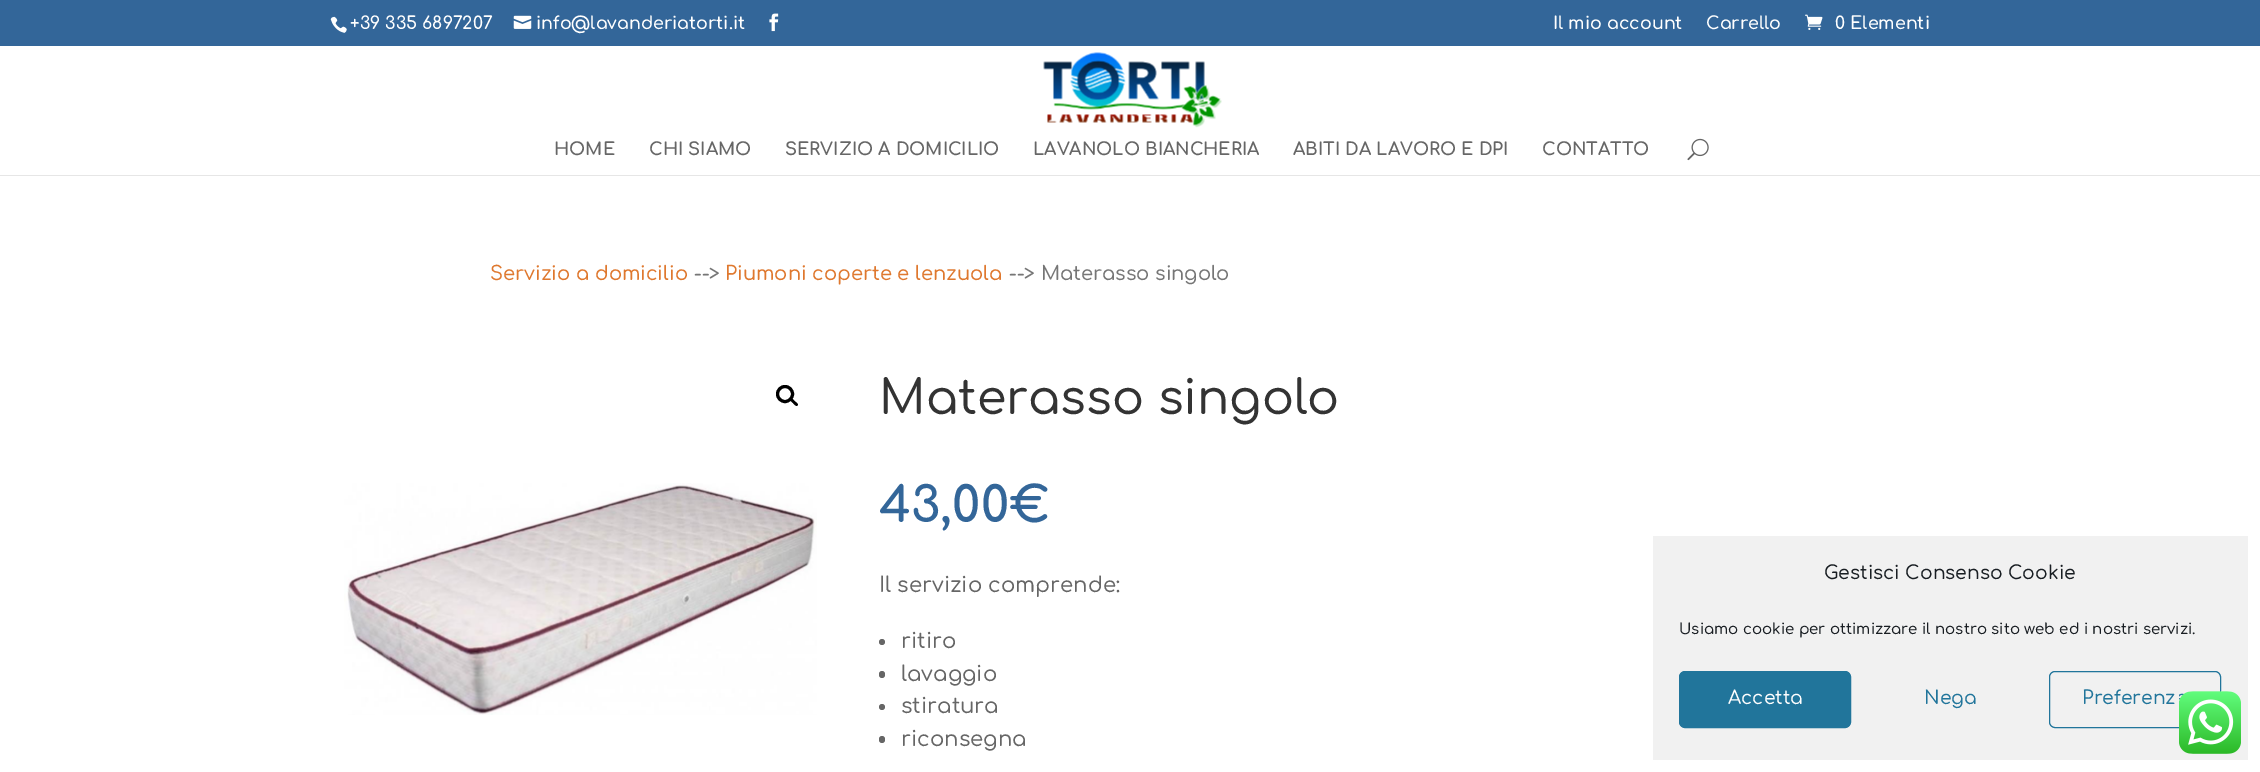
%!PS
<< /PageSize [2260 772] >> setpagedevice
/rgb { dup -16 bitshift 255 div exch dup -8 bitshift 255 and 255 div exch 255 and 255 div setrgbcolor } def
/font { [ exch dup neg 0 0 3 -1 roll 0 0 ] selectfont } def
/text { moveto show } def
/circle { newpath 0 360 arc closepath } def
/roundrect { 5 dict begin { /r /h /w /y /x } { exch def } forall
  x r add y moveto x w add y 2 copy h add r arct x w add y h add x 1 index r arct
  x y h add x y r arct x y 2 copy exch w add exch r arct closepath end } def
/picture { 5 dict begin { /h /w /y /x /name } { exch def } forall
  gsave x y translate w h scale
  w h 8 [w 0 0 h 0 0] name (r) file false 3 colorimage grestore end } def
0 772 translate 1 -1 scale
4 setmiterlimit
/s1 { /Comfortaa-SemiBold 17.5 font 16#FFFFFF rgb } def
/s2 { /Comfortaa-Bold 17.5 font 16#666666 rgb } def
/s3 { /Comfortaa-Medium 19.5 font 16#DF782E rgb } def
/s4 { /Comfortaa-Medium 19.5 font 16#767676 rgb } def
/s5 { /Comfortaa-Medium 47.5 font 16#333333 rgb } def
/s6 { /Comfortaa-Bold 49 font 16#336699 rgb } def
/s7 { /Comfortaa-Medium 21.25 font 16#666666 rgb } def
/s8 { /Comfortaa-Medium 18.75 font 16#191E23 rgb } def
/s9 { /Comfortaa-Medium 15 font 16#191E23 rgb } def
/s10 { /Comfortaa-Medium 18.75 font 16#FFFFFF rgb } def
/s11 { /Comfortaa-Medium 18.75 font 16#21759B rgb } def
16#FFFFFF rgb
0 0 2260 772 rectfill
16#336699 rgb
0 0 2260 46 rectfill
(pic1.raw) 330 16 17 17 picture
s1
(+39 335 6897207) 350 29 text
(pic2.raw) 513 15 19 14 picture
(info@lavanderiatorti.it) 536 29 text
(pic3.raw) 769 13 10 19 picture
(Il mio account) 1553 29 text
(Carrello) 1706 29 text
(pic4.raw) 1805 14 18 16 picture
(0 Elementi) 1835 29 text
16#E6E6E6 rgb
0 175 2260 1 rectfill
(pic5.raw) 1043 52 179 76 picture
s2
(HOME) 554 155 text
(CHI SIAMO) 649 155 text
(SERVIZIO A DOMICILIO) 785 155 text
(LAVANOLO BIANCHERIA) 1033 155 text
(ABITI DA LAVORO E DPI) 1293 155 text
(CONTATTO) 1542 155 text
(pic6.raw) 1687 138 22 23 picture
s3
(Servizio a domicilio) 490 280 text
s4
(-->) 694 280 text
s3
(Piumoni coperte e lenzuola) 725 280 text
s4
(--> Materasso singolo) 1009 280 text
16#000000 rgb
3 setlinewidth
785 394 7.5 circle stroke
790.5 398.5 moveto 791.5 397 794 400.5 794.5 401 curveto 795.5 402 799 404 797.5 405.5 curveto 796 407 793.5 403.5 793 403 curveto 792 402 789 400 790.5 398.5 curveto closepath fill
(pic7.raw) 344 483 473 232 picture
s5
(Materasso singolo) 879 414 text
s6
(43,00€) 879 522 text
s7
(Il servizio comprende:) 879 592 text
882 642 3 circle fill
(ritiro) 901 648 text
879 671 6 7 3 roundrect fill
(lavaggio) 901 681 text
882 707 3 circle fill
(stiratura) 901 713 text
879 736 6 7 3 roundrect fill
(riconsegna) 901 746 text
16#F1F1F1 rgb
1653 536 595 224 rectfill
s8
(Gestisci Consenso Cookie) 1824 579 text
s9
(Usiamo cookie per ottimizzare il nostro sito web ed i nostri servizi.) 1679 634 text
16#21759B rgb
1679.5 671.5 171 56 5.5 roundrect gsave fill grestore
1 setlinewidth
stroke
s10
(Accetta) 1728 704 text
s11
(Nega) 1924 704 text
2049.5 671.5 171 56 5.5 roundrect stroke
(Preferenz) 2082 704 text
(pic8.raw) 2179 691 62 63 picture
showpage
